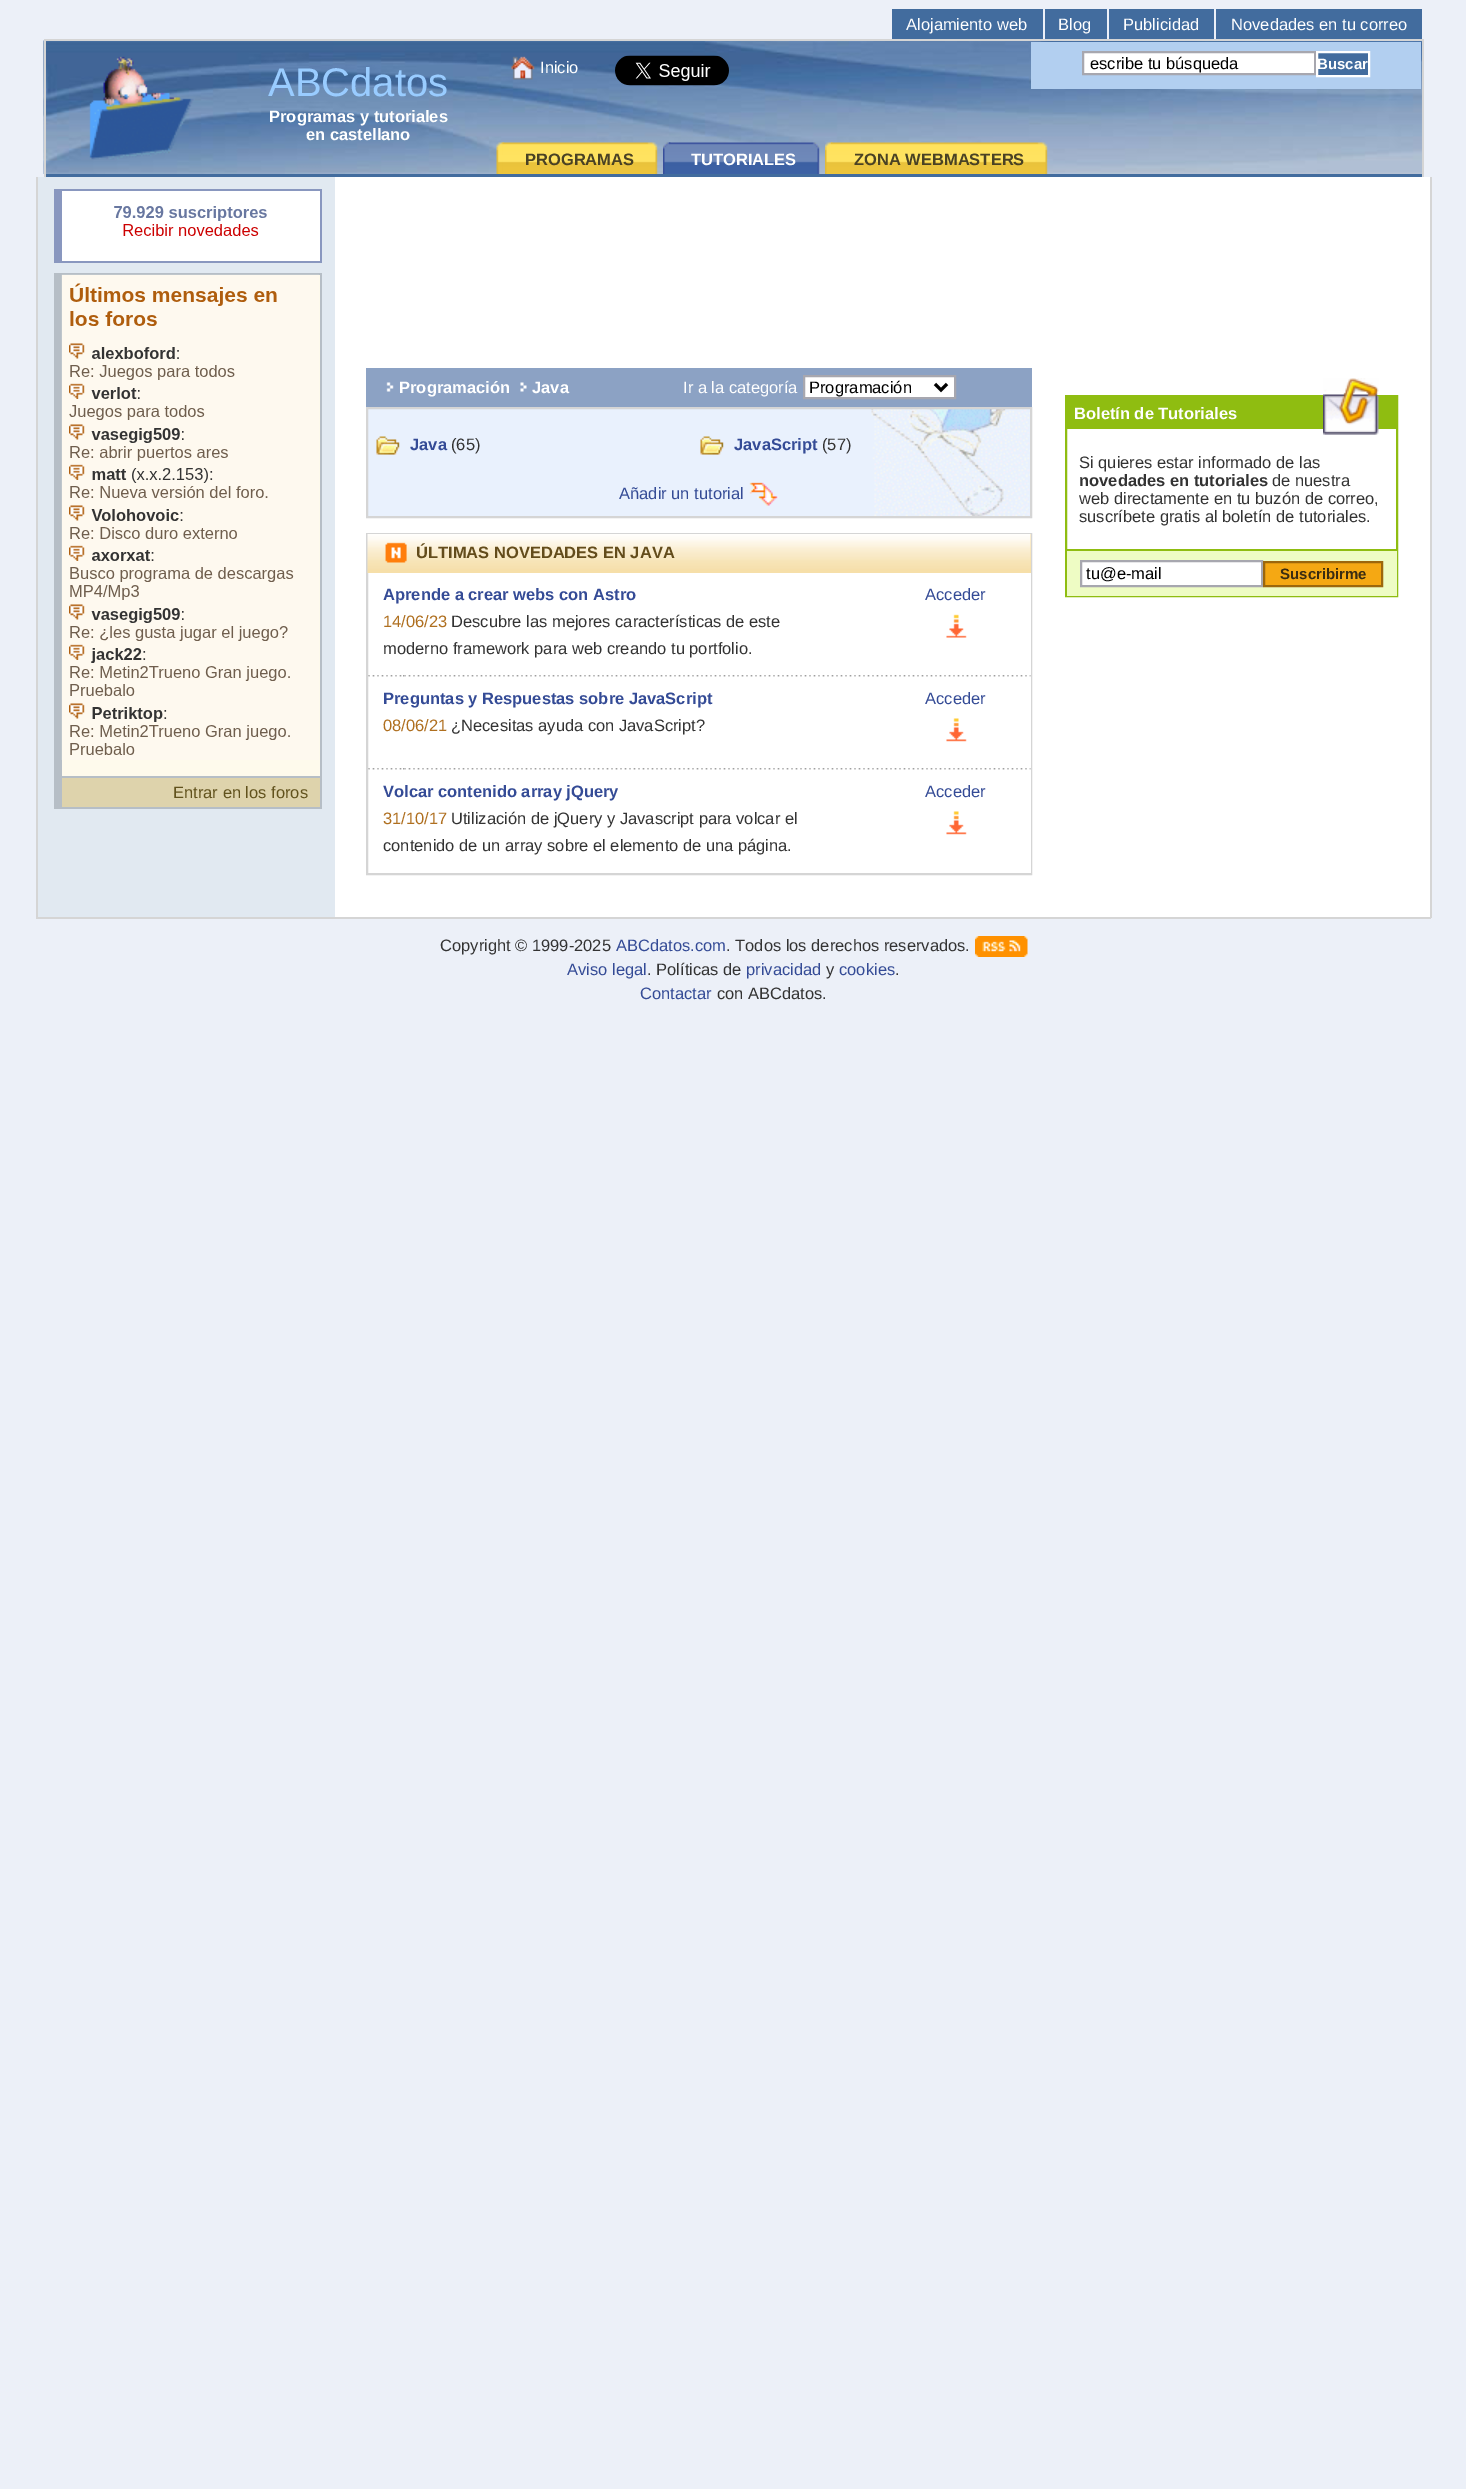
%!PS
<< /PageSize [1466 2489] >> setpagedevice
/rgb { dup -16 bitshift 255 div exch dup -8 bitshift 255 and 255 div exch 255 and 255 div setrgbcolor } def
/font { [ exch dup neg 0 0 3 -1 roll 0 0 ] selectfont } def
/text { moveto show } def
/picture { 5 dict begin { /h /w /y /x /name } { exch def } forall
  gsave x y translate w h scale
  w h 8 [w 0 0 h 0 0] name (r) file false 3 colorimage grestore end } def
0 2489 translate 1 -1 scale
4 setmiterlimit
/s1 { /LiberationSans-Regular 16.5 font 16#FFFFFF rgb } def
/s2 { /LiberationSans-Regular 40 font 16#99CCFF rgb } def
/s3 { /LiberationSans-Bold 16.5 font 16#FFFFFF rgb } def
/s4 { /LiberationSans-Regular 16.5 font 16#000000 rgb } def
/s5 { /LiberationSans-Bold 15 font 16#FFFFFF rgb } def
/s6 { /LiberationSans-Bold 16.5 font 16#4A4224 rgb } def
/s7 { /LiberationSans-Regular 16.5 font 16#61521D rgb } def
/s8 { /LiberationSans-Bold 16.5 font 16#344B96 rgb } def
/s9 { /LiberationSans-Regular 16.5 font 16#333333 rgb } def
/s10 { /LiberationSans-Regular 16.5 font 16#344B96 rgb } def
/s11 { /LiberationSans-Bold 16.5 font 16#634C1B rgb } def
/s12 { /LiberationSans-Regular 16.5 font 16#AF6F1F rgb } def
/s13 { /LiberationSans-Bold 16.5 font 16#333333 rgb } def
/s14 { /LiberationSans-Bold 15 font 16#3B2C11 rgb } def
16#ECF0F8 rgb
0 0 1466 2489 rectfill
16#426C9E rgb
892 9 151 30 rectfill
s1
(Alojamiento web) 906 30 text
16#426C9E rgb
1045 9 62 30 rectfill
s1
(Blog) 1058 30 text
16#426C9E rgb
1109 9 105 30 rectfill
s1
(Publicidad) 1123 30 text
16#426C9E rgb
1216 9 206 30 rectfill
s1
(Novedades en tu correo) 1231 30 text
16#426C9E rgb
46 174 1376 3 rectfill
(pic1.raw) 43 40 1379 134 picture
16#D5D5D5 rgb
44 39 1380 2 rectfill
1422 39 2 138 rectfill
44 39 2 138 rectfill
(pic2.raw) 89 56 106 104 picture
s2
(ABCdatos) 268 96 text
s3
(Programas y tutoriales) 269 122 text
(en castellano) 306 140 text
(pic3.raw) 511 56 24 24 picture
s1
(Inicio) 540 73 text
(pic4.raw) 615 55 114 31 picture
16#B2CFF0 rgb
1031 42 390 47 rectfill
16#FFFFFF rgb
1083 52 moveto 1315 52 lineto 1315 74 lineto 1083 74 lineto closepath gsave fill grestore
16#A7A7AF rgb
2 setlinewidth
stroke
s4
(escribe tu búsqueda) 1090 69 text
16#426C9E rgb
1317 52 moveto 1369 52 lineto 1369 76 lineto 1317 76 lineto closepath gsave fill grestore
16#FFFFFF rgb
stroke
s5
(Buscar) 1317 69 text
(pic5.raw) 496 142 8 32 picture
(pic6.raw) 502 142 156 32 picture
s6
(PROGRAMAS) 525 165 text
(pic7.raw) 663 142 8 32 picture
(pic8.raw) 669 142 151 32 picture
s3
(TUTORIALES) 691 165 text
(pic9.raw) 825 142 8 32 picture
(pic10.raw) 831 142 217 32 picture
s6
(ZONA WEBMASTERS) 854 165 text
16#D5D5D5 rgb
1430 177 2 741 rectfill
36 917 1395 2 rectfill
36 177 2 741 rectfill
16#FFFFFF rgb
335 177 1095 159 rectfill
16#E1E9F1 rgb
38 177 297 740 rectfill
16#FFFFFF rgb
62 191 258 70 rectfill
16#8997BF rgb
54 189 267 2 rectfill
320 189 2 74 rectfill
54 261 267 2 rectfill
54 189 8 74 rectfill
(pic11.raw) 114 206 153 30 picture
16#FEFAEC rgb
62 275 258 501 rectfill
16#B6BEC6 rgb
54 273 267 2 rectfill
320 273 2 536 rectfill
54 807 267 2 rectfill
54 273 8 536 rectfill
(pic12.raw) 61 274 258 486 picture
16#DED3AC rgb
62 778 258 29 rectfill
16#B6BEC6 rgb
62 776 258 2 rectfill
s7
(Entrar en los foros) 173 798 text
16#FFFFFF rgb
335 336 1095 581 rectfill
16#8CA2C4 rgb
366 368 666 39 rectfill
(pic13.raw) 386 382 8 10 picture
s3
(Programación) 399 393 text
(pic14.raw) 520 382 7 10 picture
(Java) 532 393 text
s1
(Ir a la categoría) 683 393 text
804 376 moveto 955 376 lineto 955 398 lineto 804 398 lineto closepath gsave fill grestore
16#A7A7AF rgb
stroke
16#000000 rgb
3 setlinewidth
935 384 moveto 941 390 lineto 947 384 lineto stroke
(Programación) 809 393 text
16#E9F1FD rgb
368 409 662 107 rectfill
(pic15.raw) 871 409 159 107 picture
16#D5D5D5 rgb
2 setlinewidth
367 408 664 109 rectstroke
(pic16.raw) 376 436 24 19 picture
s8
(Java) 410 450 text
s9
(\(65\)) 451 450 text
(pic16.raw) 700 436 24 19 picture
s8
(JavaScript) 734 450 text
s9
(\(57\)) 822 450 text
s10
(Añadir un tutorial) 619 499 text
(pic17.raw) 749 482 30 24 picture
16#D5D5D5 rgb
367 534 664 340 rectstroke
16#F6DFA8 rgb
1030 534 1 39 rectfill
(pic18.raw) 367 534 664 39 picture
(pic19.raw) 385 542 22 21 picture
s11
(ÚLTIMAS NOVEDADES EN JAVA) 416 558 text
16#FFFFFF rgb
1030 573 1 300 rectfill
(pic20.raw) 368 675 663 2 picture
s8
(Aprende a crear webs con Astro) 383 600 text
s12
(14/06/23) 383 627 text
s9
(Descubre las mejores características de este) 451 627 text
(moderno framework para web creando tu portfolio.) 383 654 text
s10
(Acceder) 925 600 text
(pic21.raw) 946 614 21 24 picture
(pic20.raw) 368 768 663 2 picture
s8
(Preguntas y Respuestas sobre JavaScript) 383 704 text
s12
(08/06/21) 383 731 text
s9
(¿Necesitas ayuda con JavaScript?) 451 731 text
s10
(Acceder) 925 704 text
(pic22.raw) 946 718 21 24 picture
s8
(Volcar contenido array jQuery) 383 797 text
s12
(31/10/17) 383 824 text
s9
(Utilización de jQuery y Javascript para volcar el) 451 824 text
(contenido de un array sobre el elemento de una página.) 383 851 text
s10
(Acceder) 925 797 text
(pic22.raw) 946 811 21 24 picture
16#8FBD11 rgb
1066 396 331 200 rectstroke
1067 397 329 32 rectfill
(pic23.raw) 1323 378 56 57 picture
s3
(Boletín de Tutoriales) 1074 419 text
s9
(Si quieres estar informado de las) 1079 468 text
s13
(novedades en tutoriales) 1079 486 text
s9
(de nuestra) 1272 486 text
(web directamente en tu buzón de correo,) 1079 504 text
(suscríbete gratis al boletín de tutoriales.) 1079 522 text
16#EEFCC4 rgb
1067 551 330 45 rectfill
16#8FBD11 rgb
1067 549 330 2 rectfill
16#FFFFFF rgb
1081 561 moveto 1262 561 lineto 1262 586 lineto 1081 586 lineto closepath gsave fill grestore
16#A7A7AF rgb
stroke
s4
(tu@e-mail) 1086 579 text
16#F5A813 rgb
1264 562 moveto 1382 562 lineto 1382 586 lineto 1264 586 lineto closepath gsave fill grestore
16#9C670C rgb
stroke
s14
(Suscribirme) 1280 579 text
s9
(Copyright © 1999-2025) 440 951 text
s10
(ABCdatos.com) 616 951 text
s9
(. Todos los derechos reservados.) 726 951 text
(pic24.raw) 975 936 53 21 picture
s10
(Aviso legal) 567 975 text
s9
(. Políticas de) 647 975 text
s10
(privacidad) 746 975 text
s9
(y) 826 975 text
s10
(cookies) 839 975 text
s9
(.) 895 975 text
s10
(Contactar) 640 999 text
s9
(con ABCdatos.) 717 999 text
showpage
